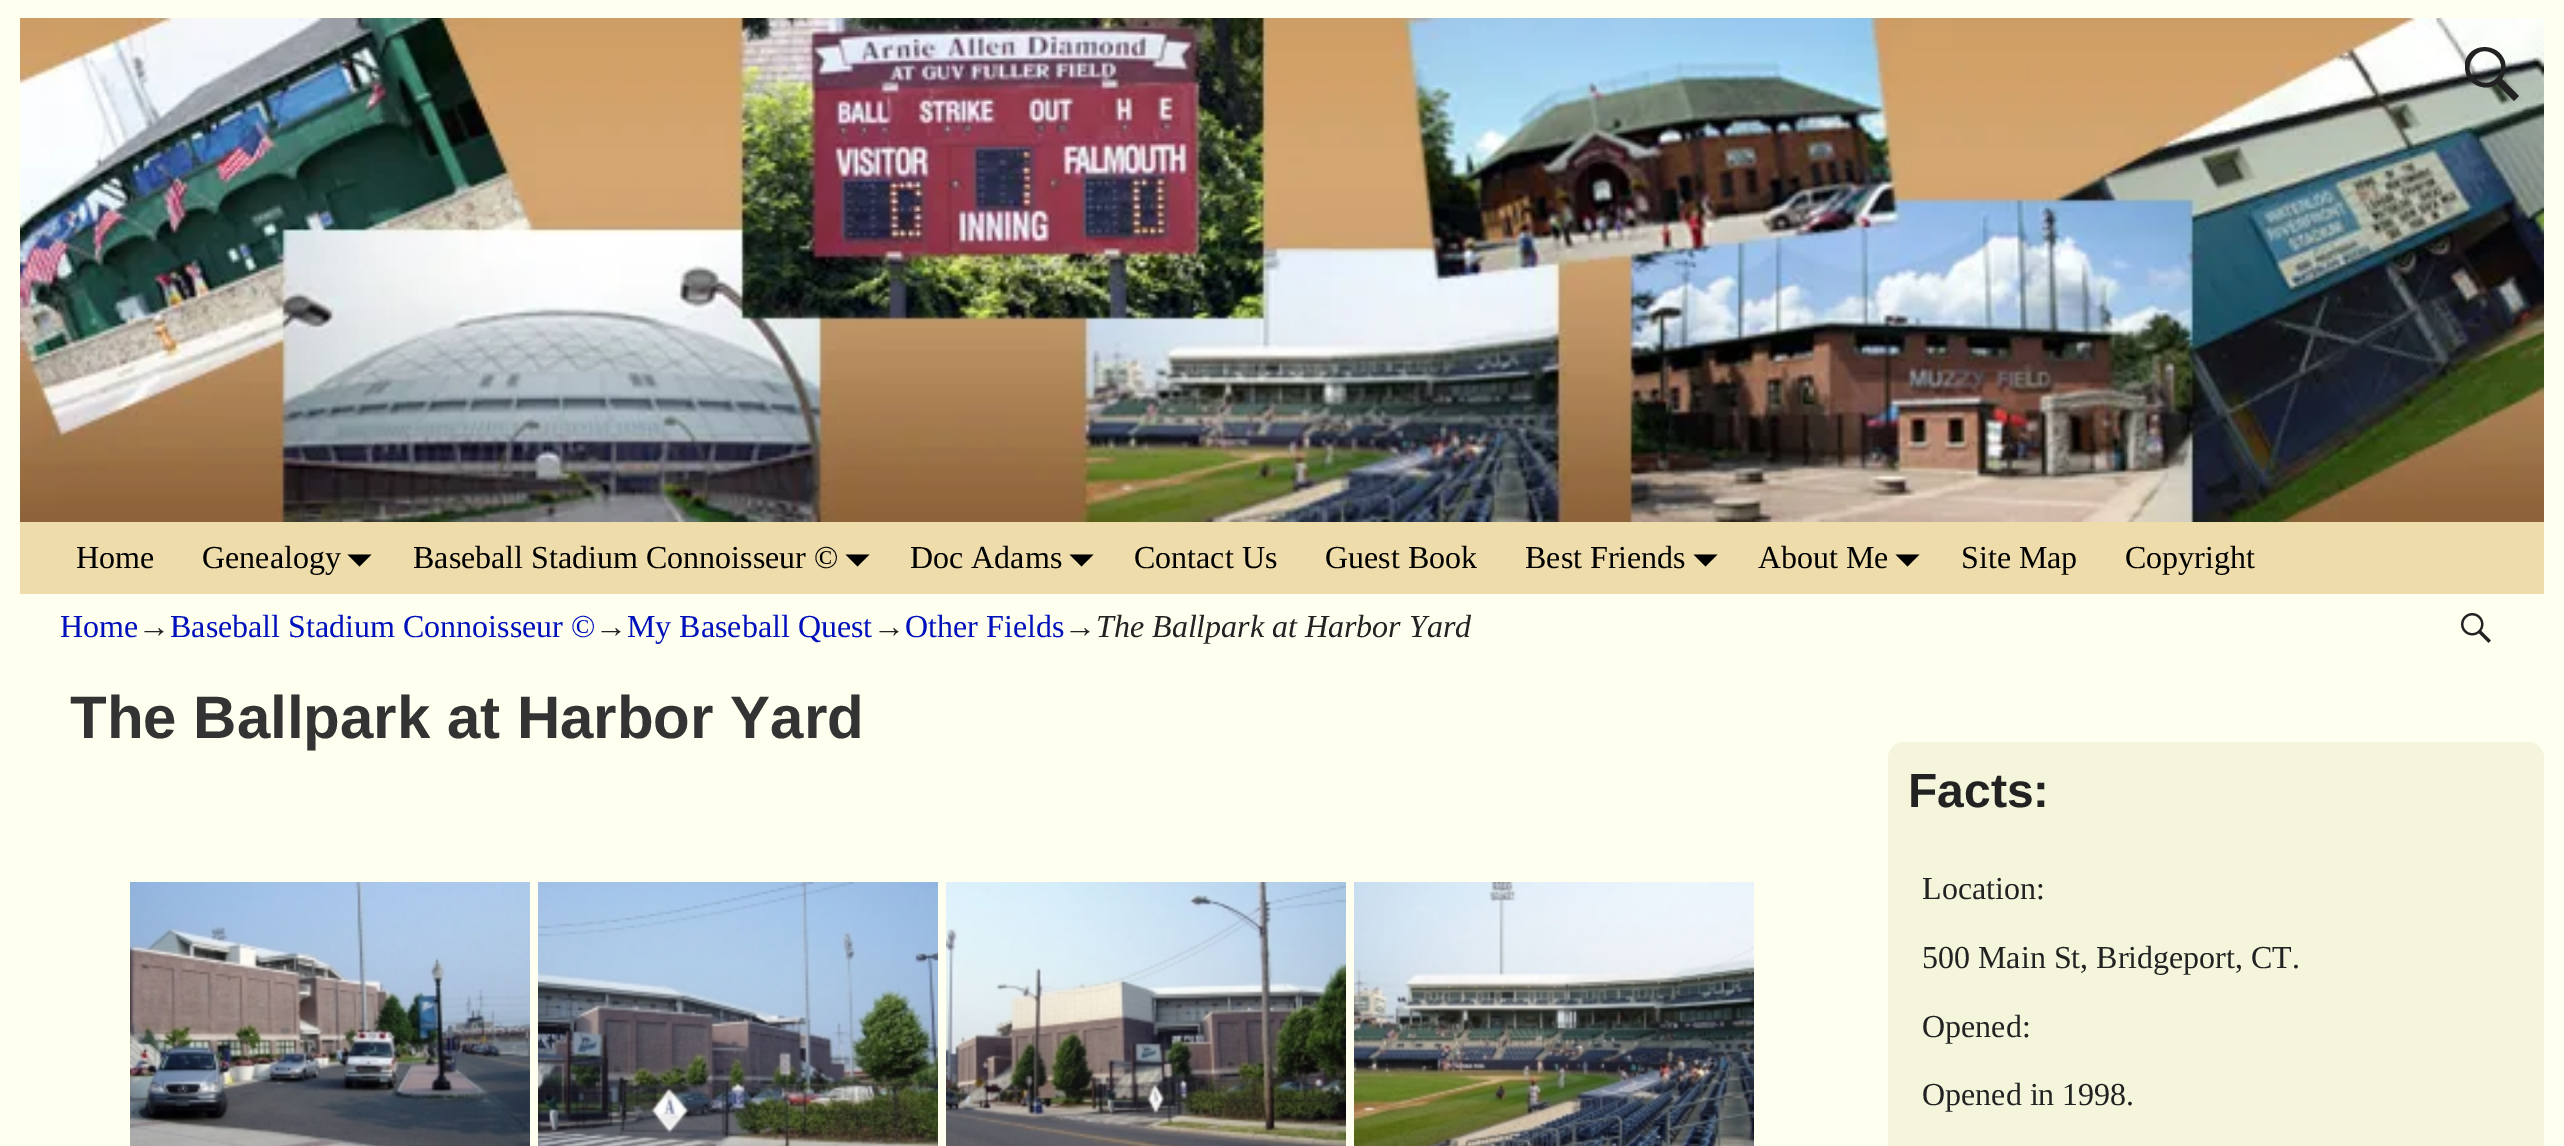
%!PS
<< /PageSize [2564 1146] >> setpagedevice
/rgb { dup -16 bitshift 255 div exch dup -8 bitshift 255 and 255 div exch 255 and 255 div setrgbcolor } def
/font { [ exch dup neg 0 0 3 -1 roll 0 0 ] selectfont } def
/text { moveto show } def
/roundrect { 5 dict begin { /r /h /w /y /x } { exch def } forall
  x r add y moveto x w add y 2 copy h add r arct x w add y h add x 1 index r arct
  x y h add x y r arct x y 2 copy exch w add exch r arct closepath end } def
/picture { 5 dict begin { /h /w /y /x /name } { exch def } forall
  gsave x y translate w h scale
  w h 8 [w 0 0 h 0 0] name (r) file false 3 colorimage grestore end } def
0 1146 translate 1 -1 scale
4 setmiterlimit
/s1 { /LiberationSerif-Regular 32 font 16#000000 rgb } def
/s2 { /LiberationSerif-Regular 32 font 16#0011BB rgb } def
/s3 { /LiberationSerif-Regular 32 font 16#222222 rgb } def
/s4 { /LiberationSerif-Italic 32 font 16#222222 rgb } def
/s5 { /LiberationSans-Bold 60 font 16#333333 rgb } def
/s6 { /LiberationSans-Bold 48 font 16#222222 rgb } def
16#FFFFF0 rgb
0 0 2564 1146 rectfill
(pic1.raw) 20 18 2524 504 picture
16#222222 rgb
2519 96 moveto 2514 101 lineto 2497 84 lineto 2487 91 2473 87 2467 76 curveto 2465 72 2465 68 2465 63 curveto 2469 42 2499 42 2505 62 curveto 2506 68 2505 74 2502 79 curveto closepath 2472 59 moveto 2461 77 2488 93 2499 75 curveto 2509 57 2482 41 2472 59 curveto closepath fill
16#EEDDAA rgb
20 522 2524 72 rectfill
s1
(Home) 76 568 text
(Genealogy) 202 568 text
347.5 554.5 moveto 371.5 554.5 lineto 359.5 566.5 lineto closepath fill
(Baseball Stadium Connoisseur ©) 413 568 text
845.5 554.5 moveto 869.5 554.5 lineto 857.5 566.5 lineto closepath fill
(Doc Adams) 910 568 text
1069.5 554.5 moveto 1093.5 554.5 lineto 1081.5 566.5 lineto closepath fill
(Contact Us) 1134 568 text
(Guest Book) 1325 568 text
(Best Friends) 1525 568 text
1693.5 554.5 moveto 1717.5 554.5 lineto 1705.5 566.5 lineto closepath fill
(About Me) 1758 568 text
1895.5 554.5 moveto 1919.5 554.5 lineto 1907.5 566.5 lineto closepath fill
(Site Map) 1961 568 text
(Copyright) 2125 568 text
s2
(Home) 60 637 text
s3
(→) 138 637 text
s2
(Baseball Stadium Connoisseur ©) 170 637 text
s3
(→) 595 637 text
s2
(My Baseball Quest) 627 637 text
s3
(→) 873 637 text
s2
(Other Fields) 905 637 text
s3
(→) 1064 637 text
s4
(The Ballpark at Harbor Yard) 1096 637 text
(pic2.raw) 2461 613 30 30 picture
s5
(The Ballpark at Harbor Yard) 70 738 text
(pic3.raw) 130 882 400 264 picture
(pic4.raw) 538 882 400 264 picture
(pic5.raw) 946 882 400 264 picture
(pic6.raw) 1354 882 400 264 picture
16#F5F5DC rgb
1888 742 656 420 16 roundrect fill
s6
(Facts:) 1908 807 text
s3
(Location:) 1922 899 text
(500 Main St, Bridgeport, CT.) 1922 968 text
(Opened:) 1922 1037 text
(Opened in 1998.) 1922 1105 text
showpage
